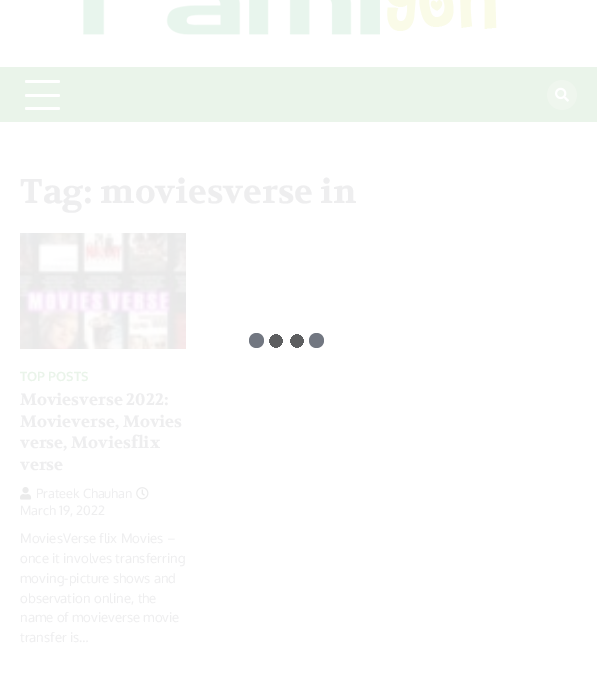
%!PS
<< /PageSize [597 681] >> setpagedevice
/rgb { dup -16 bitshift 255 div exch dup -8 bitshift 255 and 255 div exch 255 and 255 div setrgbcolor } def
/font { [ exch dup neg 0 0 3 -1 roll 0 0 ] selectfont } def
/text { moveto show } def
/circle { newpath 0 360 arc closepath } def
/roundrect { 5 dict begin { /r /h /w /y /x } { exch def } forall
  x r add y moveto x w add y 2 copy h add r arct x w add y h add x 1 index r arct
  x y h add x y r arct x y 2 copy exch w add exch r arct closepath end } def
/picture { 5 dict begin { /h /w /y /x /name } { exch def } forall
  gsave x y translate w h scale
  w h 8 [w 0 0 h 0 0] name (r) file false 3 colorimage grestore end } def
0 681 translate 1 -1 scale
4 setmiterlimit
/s1 { /Volkhov-Bold 34.25 font 16#EEEEEF rgb } def
/s2 { /Oxygen-Bold 12.75 font 16#EAF4EA rgb } def
/s3 { /Volkhov-Bold 16.5 font 16#EEEEEF rgb } def
/s4 { /Oxygen-Regular 12.75 font 16#EEEEEF rgb } def
/s5 { /Oxygen-Regular 13.2 font 16#EEEEEF rgb } def
16#FFFFFF rgb
0 0 597 681 rectfill
(pic1.raw) 83 0 414 35 picture
16#EAF4EA rgb
0 67 597 55 rectfill
16#FFFFFF rgb
25 80 35 3 1.5 roundrect fill
25 94 35 3 1.5 roundrect fill
25 107 35 3 1.5 roundrect fill
16#EFF6EE rgb
562 95 15 circle fill
(pic2.raw) 555 87 14 15 picture
s1
(Tag: moviesverse in) 20 203 text
(pic3.raw) 20 233 166 116 picture
s2
(TOP POSTS) 20 381 text
s3
(Moviesverse 2022:) 20 405 text
(Movieverse, Movies) 20 427 text
(verse, Moviesflix) 20 448 text
(verse) 20 470 text
(pic4.raw) 20 487 12 13 picture
s4
(Prateek Chauhan) 36 498 text
(pic5.raw) 136 487 13 13 picture
(March 19, 2022) 20 515 text
s5
(MoviesVerse flix Movies –) 20 543 text
(once it involves transferring) 20 563 text
(moving-picture shows and) 20 583 text
(observation online, the) 20 603 text
(name of movieverse movie) 20 622 text
(transfer is…) 20 642 text
gsave 290 334 moveto 304 334 lineto 304 348 lineto 290 348 lineto closepath clip newpath 297 341 translate 7.5 7.5 scale
<< /ShadingType 3 /ColorSpace /DeviceRGB /Coords [0 0 0 0 0 1] /Extend [true true] /Function << /FunctionType 3 /Domain [0 1] /Functions [<< /FunctionType 2 /Domain [0 1] /C0 [0.365 0.369 0.376] /C1 [0.365 0.369 0.376] /N 1 >> << /FunctionType 2 /Domain [0 1] /C0 [0.365 0.369 0.376] /C1 [1 1 1] /N 1 >>] /Bounds [0.95] /Encode [0 1 0 1] >> >> shfill grestore
gsave 269 334 moveto 283 334 lineto 283 348 lineto 269 348 lineto closepath clip newpath 276 341 translate 7.5 7.5 scale
<< /ShadingType 3 /ColorSpace /DeviceRGB /Coords [0 0 0 0 0 1] /Extend [true true] /Function << /FunctionType 3 /Domain [0 1] /Functions [<< /FunctionType 2 /Domain [0 1] /C0 [0.365 0.369 0.376] /C1 [0.365 0.369 0.376] /N 1 >> << /FunctionType 2 /Domain [0 1] /C0 [0.365 0.369 0.376] /C1 [1 1 1] /N 1 >>] /Bounds [0.95] /Encode [0 1 0 1] >> >> shfill grestore
16#727781 rgb
256.5 340.5 7.5 circle fill
316.5 340.5 7.5 circle fill
showpage
